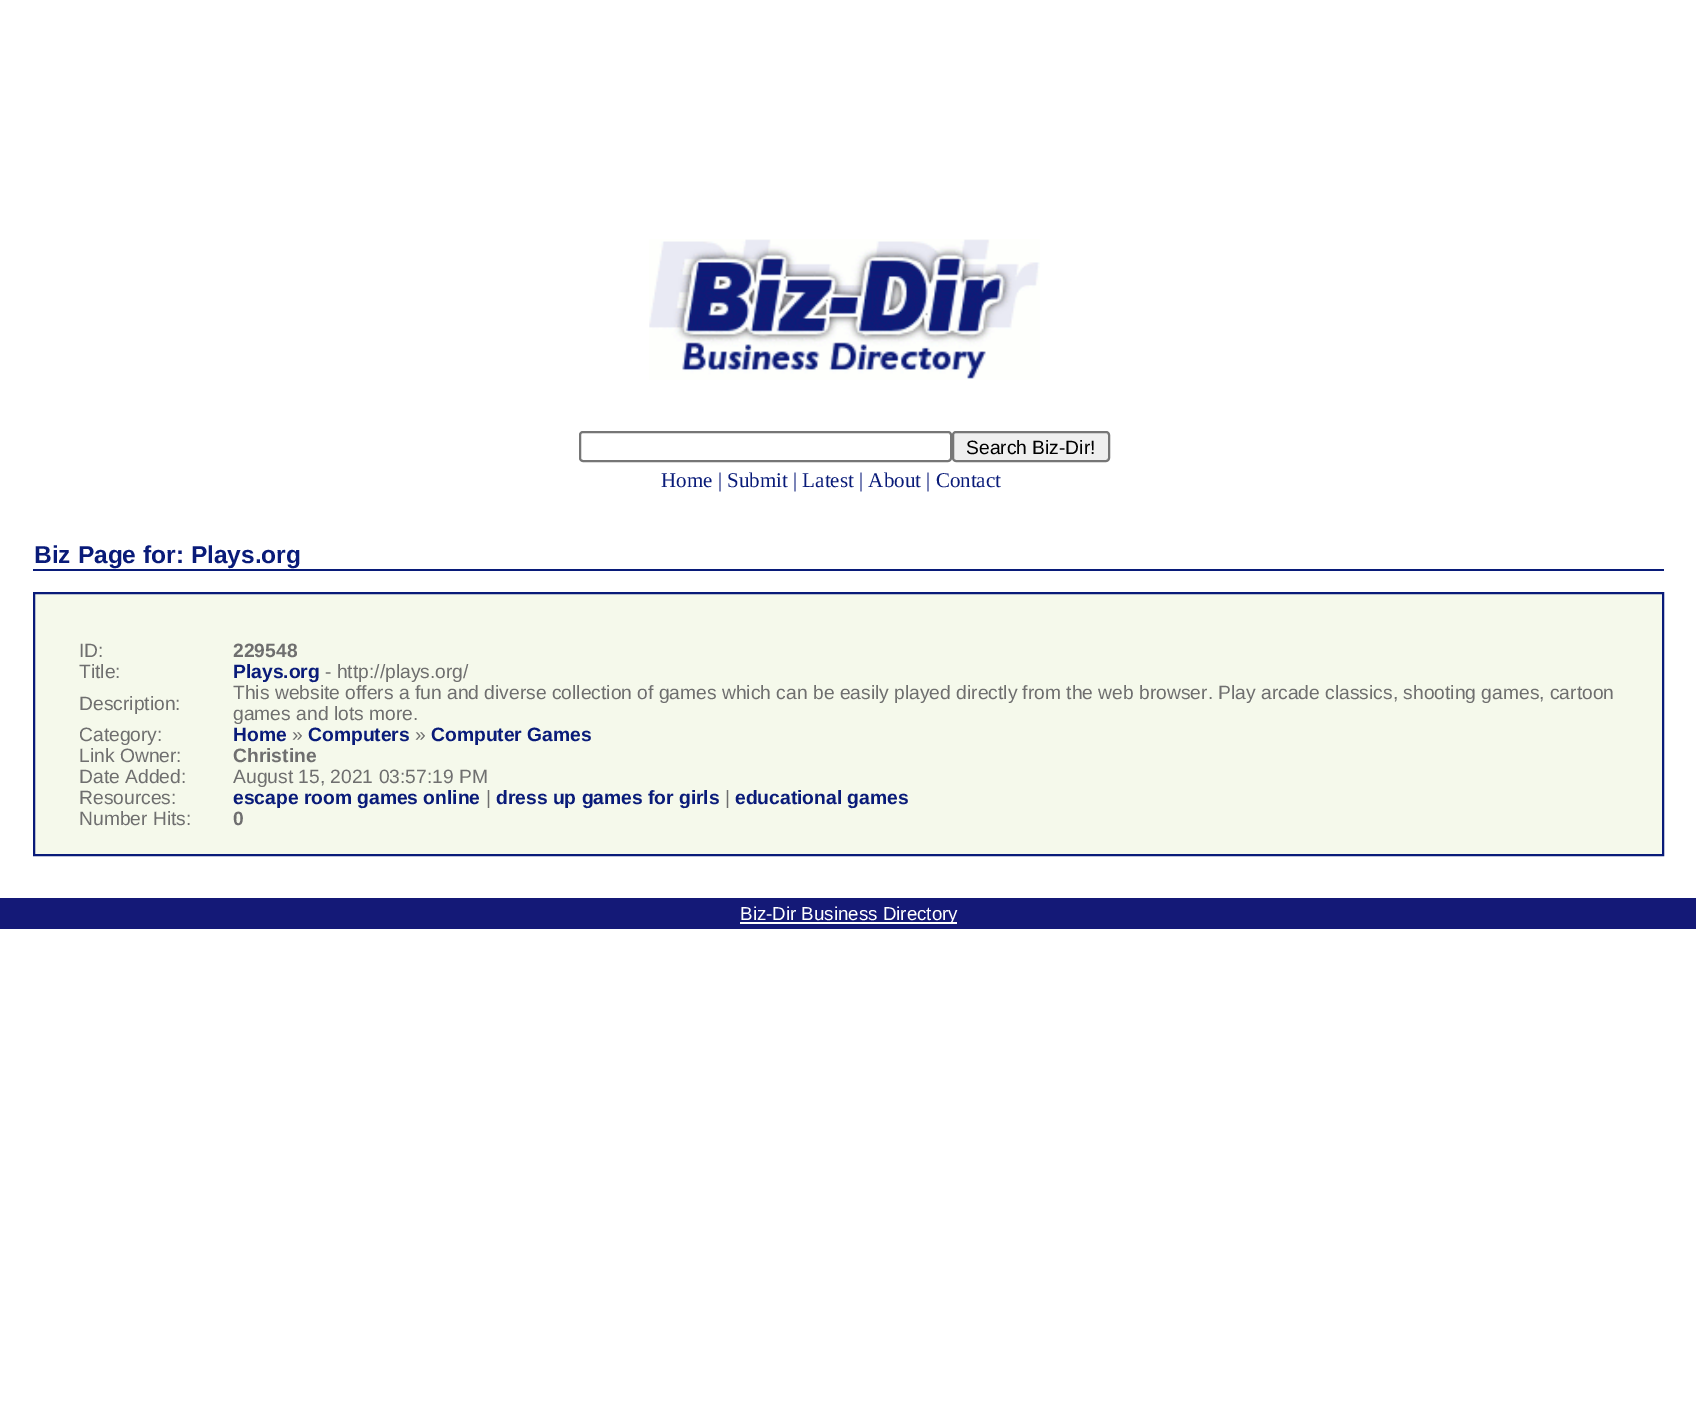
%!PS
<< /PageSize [1696 1402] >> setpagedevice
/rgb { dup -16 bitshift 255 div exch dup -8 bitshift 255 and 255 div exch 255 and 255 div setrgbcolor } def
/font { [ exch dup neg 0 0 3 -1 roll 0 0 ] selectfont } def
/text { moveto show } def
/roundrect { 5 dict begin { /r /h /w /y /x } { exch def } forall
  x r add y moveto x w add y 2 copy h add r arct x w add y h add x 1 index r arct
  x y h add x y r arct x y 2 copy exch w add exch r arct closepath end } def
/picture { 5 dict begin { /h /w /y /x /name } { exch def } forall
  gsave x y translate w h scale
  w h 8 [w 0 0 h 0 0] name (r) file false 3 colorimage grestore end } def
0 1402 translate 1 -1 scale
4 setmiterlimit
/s1 { /LiberationSans-Regular 19.25 font 16#000000 rgb } def
/s2 { /LiberationSerif-Regular 21 font 16#091B79 rgb } def
/s3 { /LiberationSans-Bold 24.5 font 16#091B79 rgb } def
/s4 { /LiberationSans-Regular 19.25 font 16#6F6F6F rgb } def
/s5 { /LiberationSans-Bold 19.25 font 16#6F6F6F rgb } def
/s6 { /LiberationSans-Bold 19.25 font 16#091B79 rgb } def
/s7 { /LiberationSans-Regular 18.75 font 16#FFFFFF rgb } def
16#FFFFFF rgb
0 0 1696 1402 rectfill
(pic1.raw) 649 239 391 141 picture
16#767676 rgb
2 setlinewidth
580 432 371 29 3 roundrect stroke
16#EFEFEF rgb
953 432 156 29 3 roundrect gsave fill grestore
16#767676 rgb
stroke
s1
(Search Biz-Dir!) 966 454 text
s2
(Home | Submit | Latest | About | Contact) 661 487 text
33 569 1631 2 rectfill
s3
(Biz Page for: Plays.org) 34 563 text
16#F5F9EB rgb
34 593 moveto 1663 593 lineto 1663 855 lineto 34 855 lineto closepath gsave fill grestore
16#091B79 rgb
stroke
s4
(ID:) 79 657 text
s5
(229548) 233 657 text
s4
(Title:) 79 678 text
s6
(Plays.org) 233 678 text
s4
(- http://plays.org/) 325 678 text
(Description:) 79 710 text
(This website offers a fun and diverse collection of games which can be easily played directly from the web browser. Play arcade classics, shooting games, cartoon) 233 699 text
(games and lots more.) 233 720 text
(Category:) 79 741 text
s6
(Home) 233 741 text
s4
(») 292 741 text
s6
(Computers) 308 741 text
s4
(») 415 741 text
s6
(Computer Games) 431 741 text
s4
(Link Owner:) 79 762 text
s5
(Christine) 233 762 text
s4
(Date Added:) 79 783 text
(August 15, 2021 03:57:19 PM) 233 783 text
(Resources:) 79 804 text
s6
(escape room games online) 233 804 text
s4
(|) 486 804 text
s6
(dress up games for girls) 496 804 text
s4
(|) 725 804 text
s6
(educational games) 735 804 text
s4
(Number Hits:) 79 825 text
s5
(0) 233 825 text
16#141977 rgb
0 898 1696 31 rectfill
16#FFFFFF rgb
740 922 217 2 rectfill
s7
(Biz-Dir Business Directory) 740 920 text
showpage
